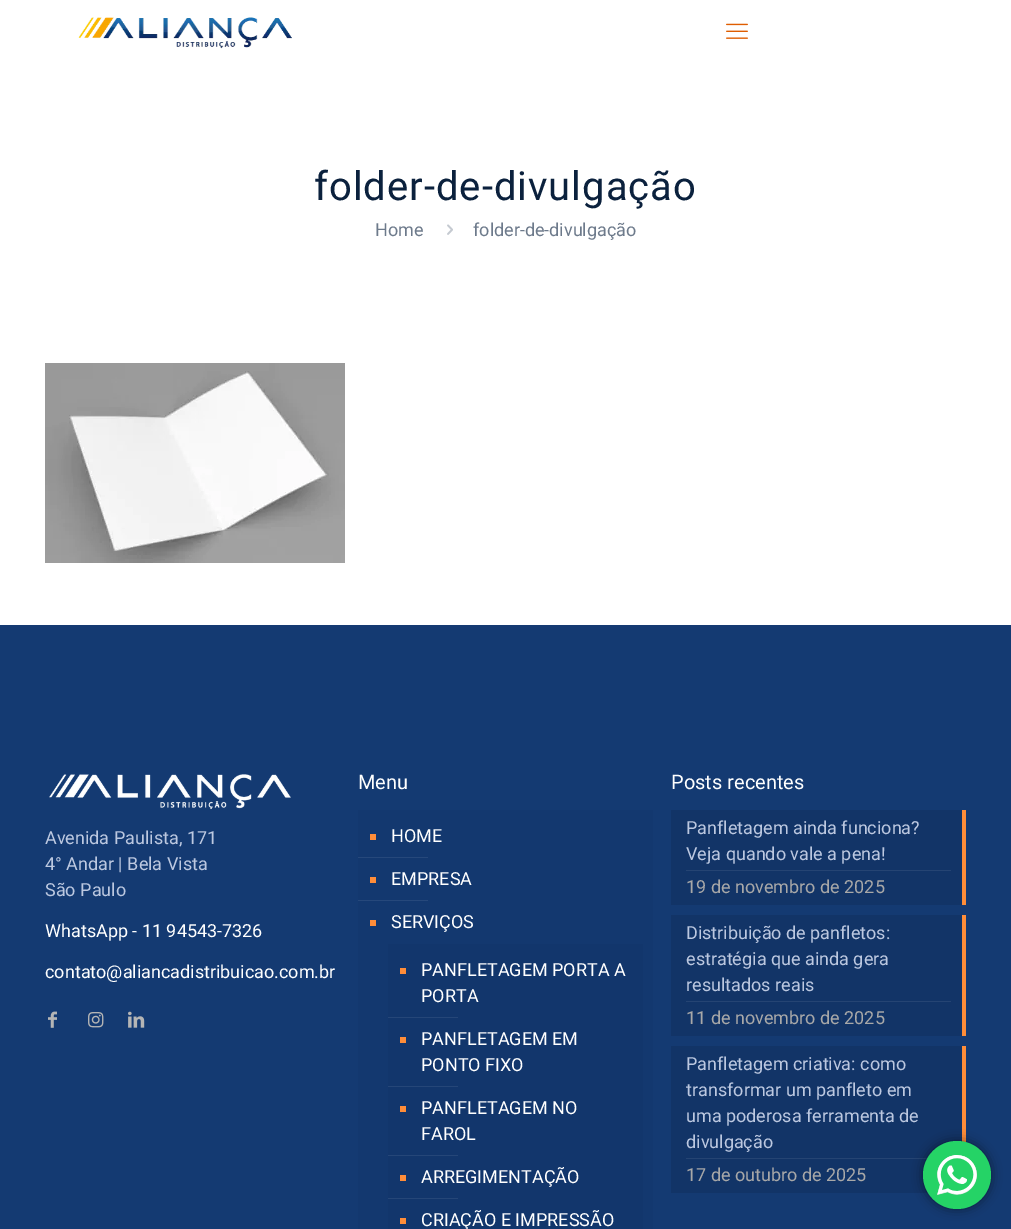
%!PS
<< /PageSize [1011 1229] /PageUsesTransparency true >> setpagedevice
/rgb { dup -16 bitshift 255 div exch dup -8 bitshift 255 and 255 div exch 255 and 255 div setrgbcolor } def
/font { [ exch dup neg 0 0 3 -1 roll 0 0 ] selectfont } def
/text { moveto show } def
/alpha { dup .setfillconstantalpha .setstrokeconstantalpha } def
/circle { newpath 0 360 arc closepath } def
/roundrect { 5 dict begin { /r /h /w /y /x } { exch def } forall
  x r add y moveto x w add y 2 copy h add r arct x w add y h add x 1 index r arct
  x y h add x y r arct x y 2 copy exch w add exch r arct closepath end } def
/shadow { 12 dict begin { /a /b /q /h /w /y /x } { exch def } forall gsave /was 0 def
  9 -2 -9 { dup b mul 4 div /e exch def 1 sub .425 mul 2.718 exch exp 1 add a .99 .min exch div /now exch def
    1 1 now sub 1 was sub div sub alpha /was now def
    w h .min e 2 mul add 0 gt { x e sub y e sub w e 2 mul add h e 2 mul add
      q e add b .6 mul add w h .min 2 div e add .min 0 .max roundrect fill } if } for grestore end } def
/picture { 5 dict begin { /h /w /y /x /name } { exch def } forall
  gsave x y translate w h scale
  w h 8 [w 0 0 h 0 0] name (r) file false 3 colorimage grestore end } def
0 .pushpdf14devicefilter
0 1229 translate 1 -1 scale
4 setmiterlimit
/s1 { /Roboto-Regular 18 font 16#6D7A8B rgb } def
/s2 { /Roboto-Regular 18 font 16#BCC8E0 rgb } def
/s3 { /Roboto-Regular 18 font 16#FFFFFF rgb } def
/s4 { /Roboto-Regular 20 font 16#FFFFFF rgb } def
/s5 { /Roboto-Regular 18 font 16#A8A8A8 rgb } def
16#FFFFFF rgb
0 0 1011 1229 rectfill
(pic1.raw) 78 17 214 32 picture
(pic2.raw) 726 23 22 16 picture
/Roboto-Regular 40 font
16#0B213D rgb
314 200 moveto 1 0 (folder-de-divulgação) ashow
s1
(Home) 375 236 text
(pic3.raw) 447 224 6 11 picture
(folder-de-divulgação) 473 236 text
(pic4.raw) 45 363 300 200 picture
16#143A72 rgb
0 625 1011 604 rectfill
(pic5.raw) 49 774 242 36 picture
s2
(Avenida Paulista, 171) 45 844 text
(4° Andar | Bela Vista) 45 870 text
(São Paulo) 45 896 text
s3
(WhatsApp - 11 94543-7326) 45 937 text
(contato@aliancadistribuicao.com.br) 45 978 text
(pic6.raw) 48 1011 9 17 picture
(pic7.raw) 88 1012 16 16 picture
(pic8.raw) 128 1011 17 17 picture
s4
(Menu) 358 789 text
16#13386F rgb
358 810 295 419 rectfill
16#FF8D39 rgb
370 834 6 6 rectfill
s3
(HOME) 391 842 text
16#26487B rgb
358 857 70 1 rectfill
16#FF8D39 rgb
370 877 6 6 rectfill
s3
(EMPRESA) 391 885 text
16#26487B rgb
358 900 70 1 rectfill
16#FF8D39 rgb
370 920 6 6 rectfill
s3
(SERVIÇOS) 391 928 text
16#12366C rgb
388 944 255 285 rectfill
16#FF8D39 rgb
400 968 6 6 rectfill
s3
(PANFLETAGEM PORTA A) 421 976 text
(PORTA) 421 1002 text
16#254678 rgb
388 1017 70 1 rectfill
16#FF8D39 rgb
400 1037 6 6 rectfill
s3
(PANFLETAGEM EM) 421 1045 text
(PONTO FIXO) 421 1071 text
16#254678 rgb
388 1086 70 1 rectfill
16#FF8D39 rgb
400 1106 6 6 rectfill
s3
(PANFLETAGEM NO) 421 1114 text
(FAROL) 421 1140 text
16#254678 rgb
388 1155 70 1 rectfill
16#FF8D39 rgb
400 1175 6 6 rectfill
s3
(ARREGIMENTAÇÃO) 421 1183 text
16#254678 rgb
388 1198 70 1 rectfill
16#FF8D39 rgb
400 1218 6 6 rectfill
s3
(CRIAÇÃO E IMPRESSÃO) 421 1226 text
s4
(Posts recentes) 671 789 text
16#123467 rgb
671 810 291 95 rectfill
16#254473 rgb
686 870 265 1 rectfill
s2
(Panfletagem ainda funciona?) 686 834 text
(Veja quando vale a pena!) 686 860 text
16#FF8D39 rgb
962 810 4 95 rectfill
s5
(19 de novembro de 2025) 686 893 text
16#123467 rgb
671 915 291 121 rectfill
16#254473 rgb
686 1001 265 1 rectfill
s2
(Distribuição de panfletos:) 686 939 text
(estratégia que ainda gera) 686 965 text
(resultados reais) 686 991 text
16#FF8D39 rgb
962 915 4 121 rectfill
s5
(11 de novembro de 2025) 686 1024 text
16#123467 rgb
671 1046 291 147 rectfill
16#254473 rgb
686 1158 242 1 rectfill
s2
(Panfletagem criativa: como) 686 1070 text
(transformar um panfleto em) 686 1096 text
(uma poderosa ferramenta de) 686 1122 text
(divulgação) 686 1148 text
16#FF8D39 rgb
962 1046 4 97 rectfill
s5
(17 de outubro de 2025) 686 1181 text
16#000000 rgb
923 1141 68 68 34 5.5 0.5 shadow
16#25D366 rgb
957 1175 34 circle fill
(pic9.raw) 937 1155 40 40 picture
.poppdf14devicefilter showpage
